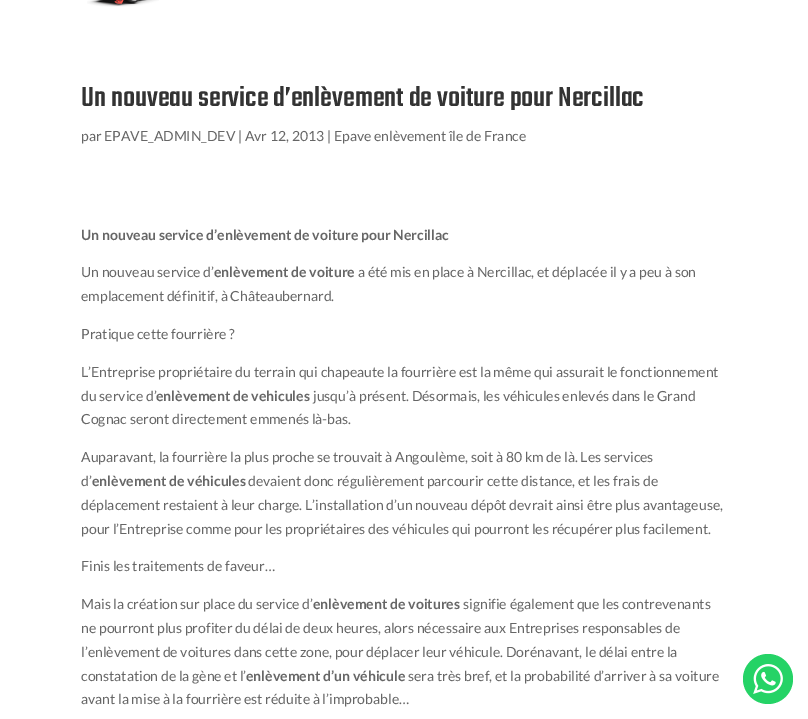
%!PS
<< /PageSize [808 719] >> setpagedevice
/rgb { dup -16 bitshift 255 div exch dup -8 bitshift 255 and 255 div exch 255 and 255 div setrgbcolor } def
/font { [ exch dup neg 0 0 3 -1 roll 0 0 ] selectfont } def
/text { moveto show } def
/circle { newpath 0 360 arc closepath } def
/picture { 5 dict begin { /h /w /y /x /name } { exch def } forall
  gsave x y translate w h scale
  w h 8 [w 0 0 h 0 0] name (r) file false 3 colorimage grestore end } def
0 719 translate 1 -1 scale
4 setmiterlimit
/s1 { /Teko-Light 30 font 16#333333 rgb } def
/s2 { /Lato-Regular 14 font 16#666666 rgb } def
/s3 { /Lato-Bold 14 font 16#666666 rgb } def
16#FFFFFF rgb
0 0 808 719 rectfill
(pic1.raw) 87 0 72 7 picture
s1
(Un nouveau service d’enlèvement de voiture pour Nercillac) 81 106 text
s2
(par EPAVE_ADMIN_DEV | Avr 12, 2013 | Epave enlèvement île de France) 81 141 text
s3
(Un nouveau service d’enlèvement de voiture pour Nercillac) 81 240 text
s2
(Un nouveau service d’) 81 277 text
s3
(enlèvement de voiture) 214 277 text
s2
(a été mis en place à Nercillac, et déplacée il y a peu à son) 358 277 text
(emplacement définitif, à Châteaubernard.) 81 301 text
(Pratique cette fourrière ?) 81 339 text
(L’Entreprise propriétaire du terrain qui chapeaute la fourrière est la même qui assurait le fonctionnement) 81 377 text
(du service d’) 81 401 text
s3
(enlèvement de vehicules) 156 401 text
s2
(jusqu’à présent. Désormais, les véhicules enlevés dans le Grand) 313 401 text
(Cognac seront directement emmenés là-bas.) 81 424 text
(Auparavant, la fourrière la plus proche se trouvait à Angoulème, soit à 80 km de là. Les services) 81 462 text
(d’) 81 486 text
s3
(enlèvement de véhicules) 92 486 text
s2
(devaient donc régulièrement parcourir cette distance, et les frais de) 248 486 text
(déplacement restaient à leur charge. L’installation d’un nouveau dépôt devrait ainsi être plus avantageuse,) 81 510 text
(pour l’Entreprise comme pour les propriétaires des véhicules qui pourront les récupérer plus facilement.) 81 534 text
(Finis les traitements de faveur…) 81 571 text
(Mais la création sur place du service d’) 81 609 text
s3
(enlèvement de voitures) 313 609 text
s2
(signifie également que les contrevenants) 463 609 text
(ne pourront plus profiter du délai de deux heures, alors nécessaire aux Entreprises responsables de) 81 633 text
(l’enlèvement de voitures dans cette zone, pour déplacer leur véhicule. Dorénavant, le délai entre la) 81 657 text
(constatation de la gène et l’) 81 681 text
s3
(enlèvement d’un véhicule) 246 681 text
s2
(sera très bref, et la probabilité d’arriver à sa voiture) 408 681 text
(avant la mise à la fourrière est réduite à l’improbable…) 81 704 text
16#25D366 rgb
768 679 25 circle fill
(pic2.raw) 753 664 30 30 picture
showpage
